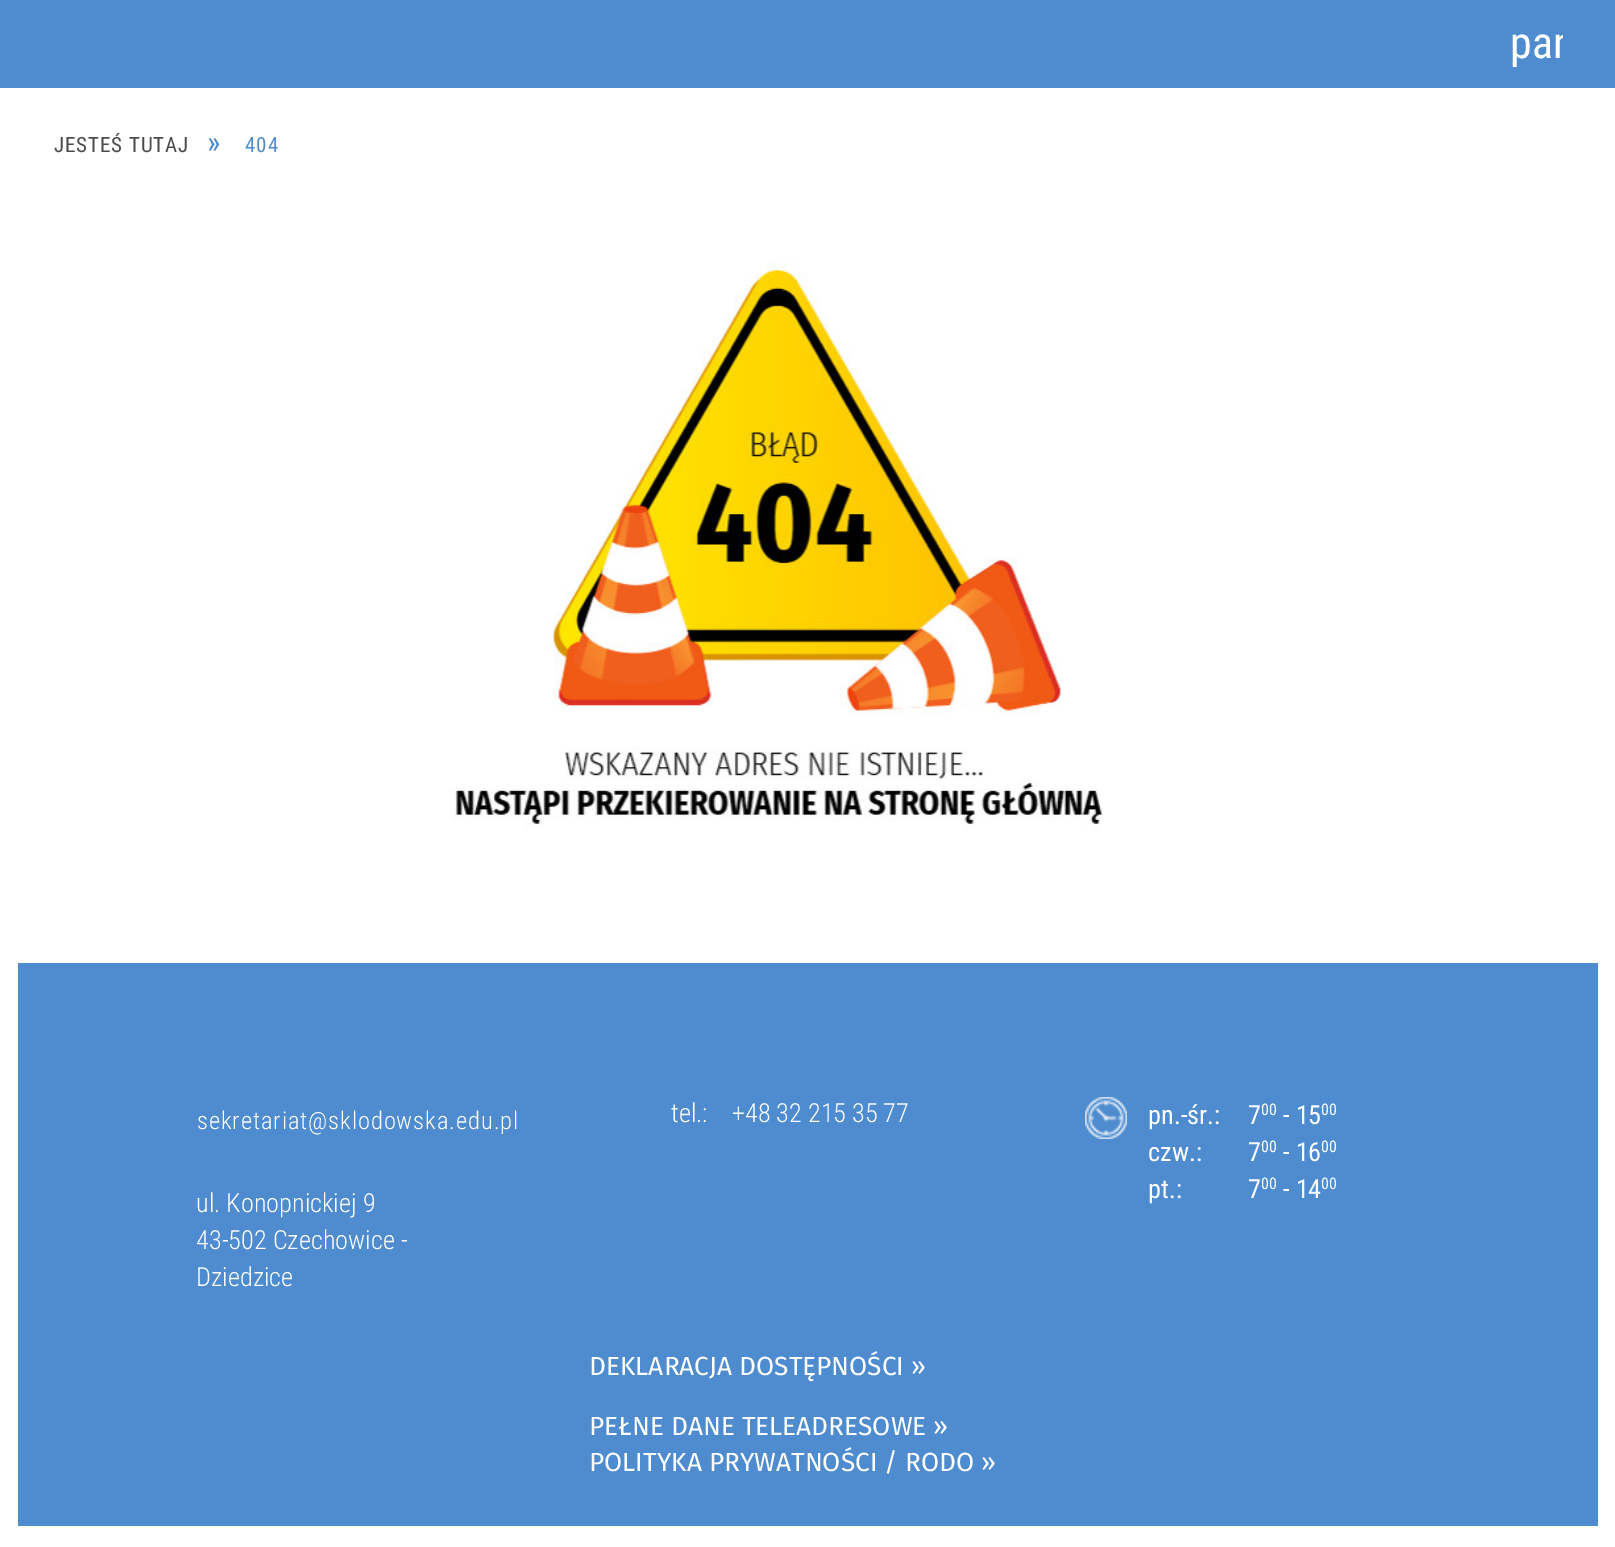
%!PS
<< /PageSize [1615 1547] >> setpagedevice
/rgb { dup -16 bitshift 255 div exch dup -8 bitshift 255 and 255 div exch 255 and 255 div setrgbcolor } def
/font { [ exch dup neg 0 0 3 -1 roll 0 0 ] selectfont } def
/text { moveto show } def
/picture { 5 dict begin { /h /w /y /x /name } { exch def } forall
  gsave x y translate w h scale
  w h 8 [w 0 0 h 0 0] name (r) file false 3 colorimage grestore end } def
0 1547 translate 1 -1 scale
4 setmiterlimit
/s1 { /RobotoCondensed-Regular 44 font 16#FFFFFF rgb } def
/s2 { /RobotoCondensed-Light 26.25 font 16#FFFFFF rgb } def
/s3 { /RobotoCondensed-Regular 26.25 font 16#FFFFFF rgb } def
/s4 { /RobotoCondensed-Regular 16 font 16#FFFFFF rgb } def
/s5 { /FiraSans-Regular 26.25 font 16#FFFFFF rgb } def
16#FFFFFF rgb
0 0 1615 1547 rectfill
16#4E8CCF rgb
0 0 1615 88 rectfill
gsave
1510 18 53 52 rectclip
s1
(pan) 1510 58 text
grestore
/RobotoCondensed-Regular 21 font
16#4C4C4C rgb
54 152 moveto 0.9 0 (JESTEŚ TUTAJ) ashow
/RobotoCondensed-Regular 32 font
16#4E8CCF rgb
207 153 moveto 0.9 0 (») ashow
/RobotoCondensed-Regular 21 font
245 152 moveto 0.9 0 (404) ashow
(pic1.raw) 450 262 653 568 picture
18 963 1580 563 rectfill
/RobotoCondensed-Light 24.5 font
16#FFFFFF rgb
197 1129 moveto 0.9 0 (sekretariat@sklodowska.edu.pl) ashow
s2
(ul. Konopnickiej 9) 196 1212 text
(43-502 Czechowice -) 196 1249 text
(Dziedzice) 196 1286 text
(tel.:) 671 1122 text
(+48 32 215 35 77) 732 1122 text
(pic2.raw) 1085 1097 42 42 picture
s3
(pn.-śr.:) 1148 1124 text
(7) 1248 1124 text
s4
(00) 1261 1115 text
s3
(- 15) 1283 1124 text
s4
(00) 1321 1115 text
s3
(czw.:) 1148 1161 text
(7) 1248 1161 text
s4
(00) 1261 1152 text
s3
(- 16) 1283 1161 text
s4
(00) 1321 1152 text
s3
(pt.:) 1148 1198 text
(7) 1248 1198 text
s4
(00) 1261 1189 text
s3
(- 14) 1283 1198 text
s4
(00) 1321 1189 text
s5
(DEKLARACJA DOSTĘPNOŚCI ») 589 1375 text
(PEŁNE DANE TELEADRESOWE ») 589 1435 text
(POLITYKA PRYWATNOŚCI / RODO ») 589 1471 text
showpage
